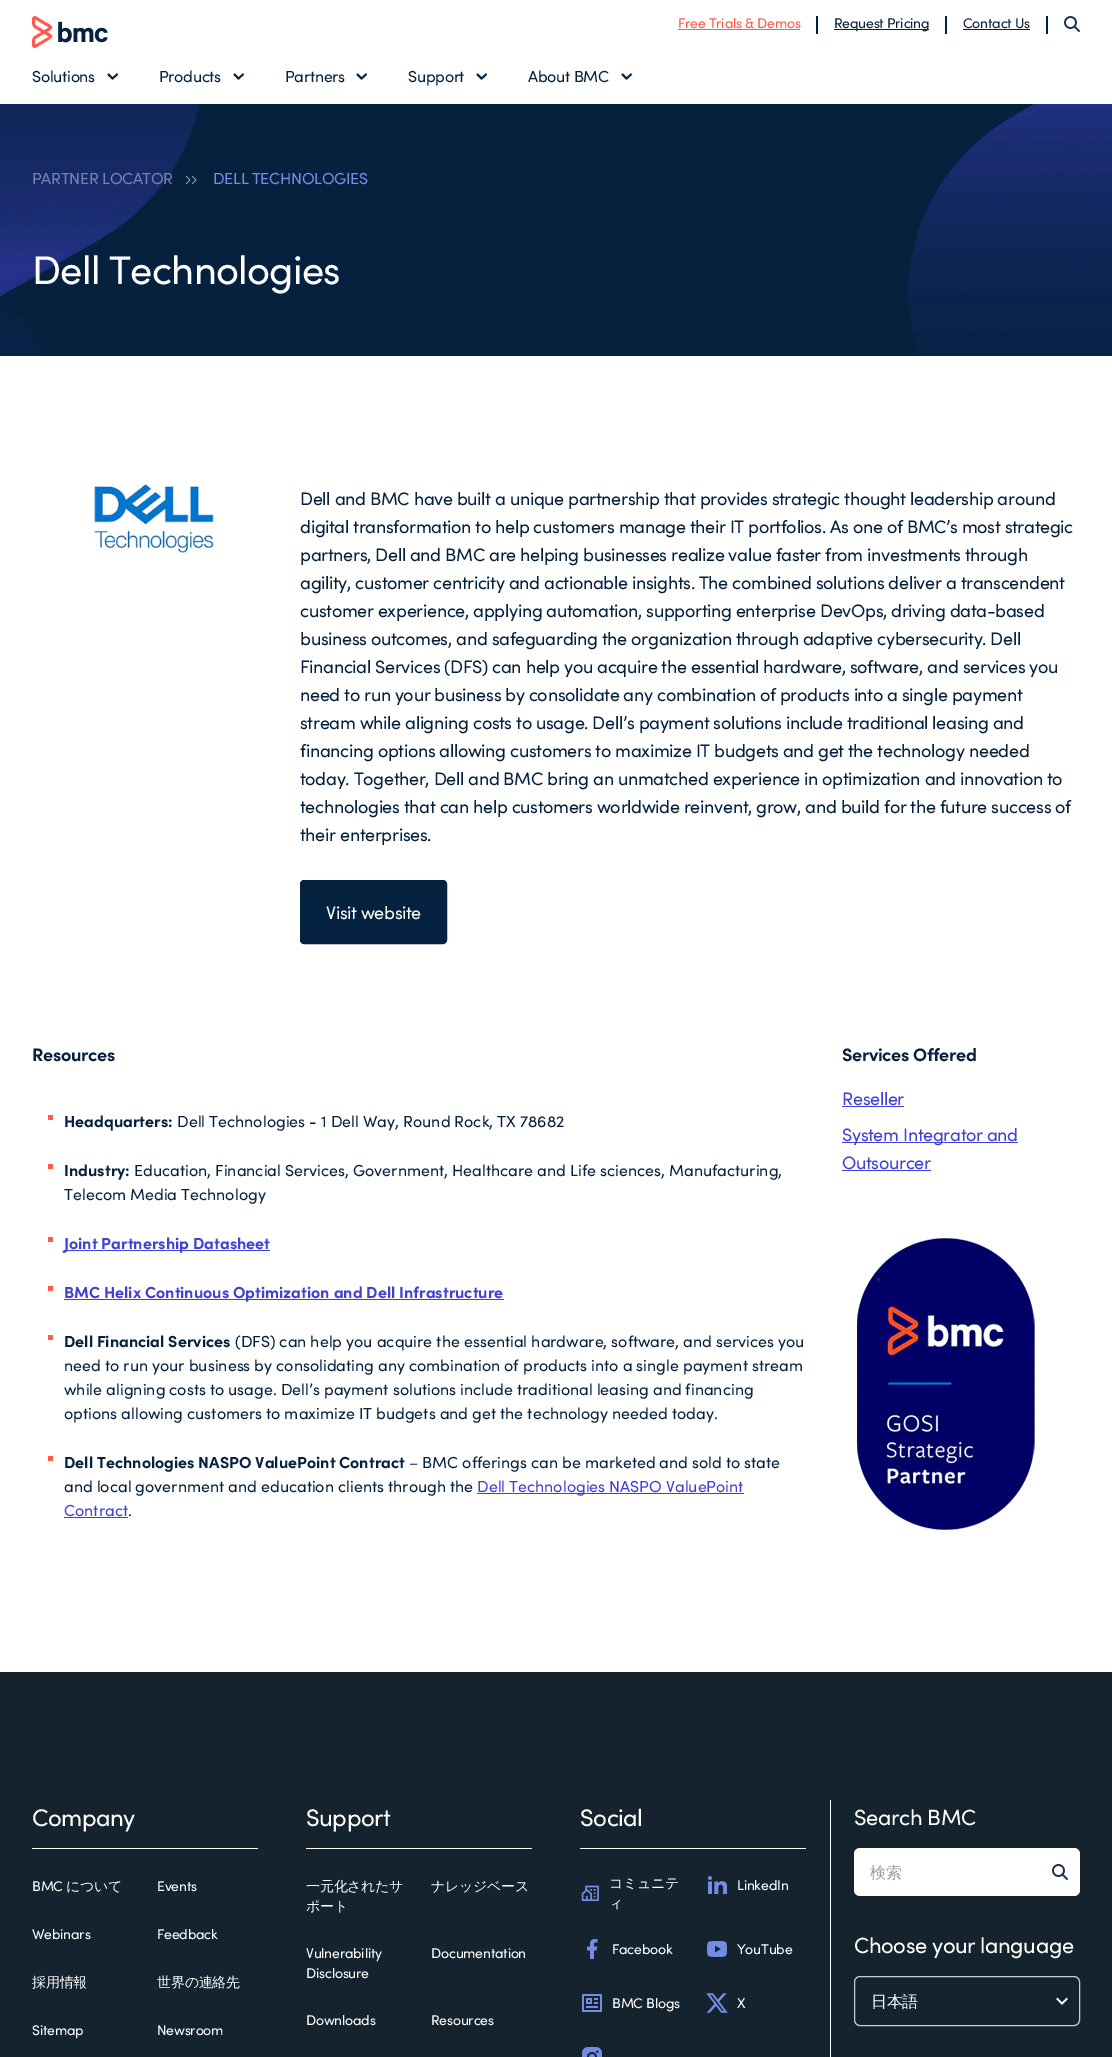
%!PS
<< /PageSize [1112 2057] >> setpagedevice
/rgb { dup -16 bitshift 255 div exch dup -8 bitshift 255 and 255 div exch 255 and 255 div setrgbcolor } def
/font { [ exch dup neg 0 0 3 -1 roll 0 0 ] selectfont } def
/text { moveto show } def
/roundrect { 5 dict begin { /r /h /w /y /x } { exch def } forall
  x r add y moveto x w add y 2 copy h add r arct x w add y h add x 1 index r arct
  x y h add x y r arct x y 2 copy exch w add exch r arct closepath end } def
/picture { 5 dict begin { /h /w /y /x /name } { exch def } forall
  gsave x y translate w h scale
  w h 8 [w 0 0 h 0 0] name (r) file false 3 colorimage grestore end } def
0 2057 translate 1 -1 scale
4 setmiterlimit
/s1 { /Sofia-Bold 16 font 16#052140 rgb } def
/s2 { /Sofia-Regular 16 font 16#052140 rgb } def
/s3 { /Sofia-Bold 16 font 16#4040D9 rgb } def
/s4 { /Sofia-Regular 16 font 16#4040D9 rgb } def
16#FFFFFF rgb
0 0 1112 2057 rectfill
(pic1.raw) 32 16 76 32 picture
16#052140 rgb
816 16 2 18 rectfill
/Sofia-Regular 14 font
16#FF5A4D rgb
678 28 moveto -0.25 0 (Free Trials & Demos) ashow
678 29 122 1 rectfill
16#052140 rgb
945 16 2 18 rectfill
834 29 95 1 rectfill
834 28 moveto -0.25 0 (Request Pricing) ashow
1046 16 2 18 rectfill
963 28 moveto -0.25 0 (Contact Us) ashow
963 29 67 1 rectfill
(pic2.raw) 1064 16 16 16 picture
/Sofia-Regular 16 font
32 82 moveto -0.3 0 (Solutions) ashow
1.8 setlinewidth
108 74 moveto 112.5 78.5 lineto 117.5 74 lineto stroke
159 82 moveto -0.3 0 (Products) ashow
234 74 moveto 238.5 78.5 lineto 243.5 74 lineto stroke
285 82 moveto -0.3 0 (Partners) ashow
357 74 moveto 361.5 78.5 lineto 366.5 74 lineto stroke
408 82 moveto -0.3 0 (Support) ashow
477 74 moveto 481.5 78.5 lineto 486.5 74 lineto stroke
528 82 moveto -0.3 0 (About BMC) ashow
622 74 moveto 626.5 78.5 lineto 631.5 74 lineto stroke
(pic3.raw) 0 104 1112 252 picture
16#7881B0 rgb
32 184 moveto -0.3 0 (PARTNER LOCATOR) ashow
(pic4.raw) 185 175 12 10 picture
16#758CE5 rgb
213 184 moveto -0.3 0 (DELL TECHNOLOGIES) ashow
/Sofia-Regular 40 font
16#FFFFFF rgb
32 284 moveto -0.75 0 (Dell Technologies) ashow
(pic5.raw) 94 484 120 69 picture
/Sofia-Regular 18 font
16#052140 rgb
300 505 moveto -0.35 0 (Dell and BMC have built a unique partnership that provides strategic thought leadership around) ashow
300 533 moveto -0.35 0 (digital transformation to help customers manage their IT portfolios. As one of BMC’s most strategic) ashow
300 561 moveto -0.35 0 (partners, Dell and BMC are helping businesses realize value faster from investments through) ashow
300 589 moveto -0.35 0 (agility, customer centricity and actionable insights. The combined solutions deliver a transcendent) ashow
300 617 moveto -0.35 0 (customer experience, applying automation, supporting enterprise DevOps, driving data-based) ashow
300 645 moveto -0.35 0 (business outcomes, and safeguarding the organization through adaptive cybersecurity. Dell) ashow
300 673 moveto -0.35 0 (Financial Services \(DFS\) can help you acquire the essential hardware, software, and services you) ashow
300 701 moveto -0.35 0 (need to run your business by consolidate any combination of products into a single payment) ashow
300 729 moveto -0.35 0 (stream while aligning costs to usage. Dell’s payment solutions include traditional leasing and) ashow
300 757 moveto -0.35 0 (financing options allowing customers to maximize IT budgets and get the technology needed) ashow
300 785 moveto -0.35 0 (today. Together, Dell and BMC bring an unmatched experience in optimization and innovation to) ashow
300 813 moveto -0.35 0 (technologies that can help customers worldwide reinvent, grow, and build for the future success of) ashow
300 841 moveto -0.35 0 (their enterprises.) ashow
301 881 145 62 3 roundrect gsave fill grestore
2 setlinewidth
stroke
16#FFFFFF rgb
326 919 moveto -0.35 0 (Visit website) ashow
/Sofia-Bold 18 font
16#052140 rgb
32 1061 moveto -0.35 0 (Resources) ashow
16#FF5A4E rgb
48 1115 5 5 rectfill
s1
(Headquarters:) 64 1127 text
s2
(Dell Technologies - 1 Dell Way, Round Rock, TX 78682) 177 1127 text
16#FF5A4E rgb
48 1164 5 5 rectfill
s1
(Industry:) 64 1176 text
s2
(Education, Financial Services, Government, Healthcare and Life sciences, Manufacturing,) 134 1176 text
(Telecom Media Technology) 64 1200 text
16#FF5A4E rgb
48 1237 5 5 rectfill
16#4040D9 rgb
64 1250 206 1 rectfill
s3
(Joint Partnership Datasheet) 64 1249 text
16#FF5A4E rgb
48 1286 5 5 rectfill
16#4040D9 rgb
64 1299 440 1 rectfill
(BMC Helix Continuous Optimization and Dell Infrastructure) 64 1298 text
16#FF5A4E rgb
48 1335 5 5 rectfill
s1
(Dell Financial Services) 64 1347 text
s2
(\(DFS\) can help you acquire the essential hardware, software, and services you) 235 1347 text
(need to run your business by consolidating any combination of products into a single payment stream) 64 1371 text
(while aligning costs to usage. Dell’s payment solutions include traditional leasing and financing) 64 1395 text
(options allowing customers to maximize IT budgets and get the technology needed today.) 64 1419 text
16#FF5A4E rgb
48 1456 5 5 rectfill
s1
(Dell Technologies NASPO ValuePoint Contract) 64 1468 text
s2
(– BMC offerings can be marketed and sold to state) 409 1468 text
(and local government and education clients through the) 64 1492 text
16#4040D9 rgb
477 1493 267 1 rectfill
(Dell Technologies NASPO ValuePoint) 477 1492 text
(Contract) 64 1516 text
64 1517 64 1 rectfill
s2
(.) 128 1516 text
/Sofia-Bold 18 font
842 1061 moveto -0.35 0 (Services Offered) ashow
/Sofia-Regular 18 font
16#4040D9 rgb
842 1105 moveto -0.35 0 (Reseller) ashow
842 1106 62 1 rectfill
842 1142 176 1 rectfill
842 1141 moveto -0.35 0 (System Integrator and) ashow
842 1169 moveto -0.35 0 (Outsourcer) ashow
842 1170 89 1 rectfill
(pic6.raw) 857 1238 178 292 picture
16#15232E rgb
0 1672 1112 385 rectfill
/Sofia-Regular 24 font
16#FFFFFF rgb
32 1826 moveto -0.5 0 (Company) ashow
32 1848 226 1 rectfill
/Sofia-Regular 14 font
32 1891 moveto -0.25 0 (BMC) ashow
/WenQuanYiZenHei-Medium 14 font
66 1891 moveto -0.25 0 (について) ashow
/Sofia-Regular 14 font
157 1891 moveto -0.25 0 (Events) ashow
32 1939 moveto -0.25 0 (Webinars) ashow
157 1939 moveto -0.25 0 (Feedback) ashow
/WenQuanYiZenHei-Medium 14 font
32 1987 moveto -0.25 0 (採用情報) ashow
157 1987 moveto -0.25 0 (世界の連絡先) ashow
/Sofia-Regular 14 font
32 2035 moveto -0.25 0 (Sitemap) ashow
157 2035 moveto -0.25 0 (Newsroom) ashow
/Sofia-Regular 24 font
306 1826 moveto -0.5 0 (Support) ashow
306 1848 226 1 rectfill
/WenQuanYiZenHei-Medium 14 font
306 1891 moveto -0.25 0 (一元化されたサ) ashow
306 1911 moveto -0.25 0 (ポート) ashow
431 1891 moveto -0.25 0 (ナレッジベース) ashow
/Sofia-Regular 14 font
306 1958 moveto -0.25 0 (Vulnerability) ashow
306 1978 moveto -0.25 0 (Disclosure) ashow
431 1958 moveto -0.25 0 (Documentation) ashow
306 2025 moveto -0.25 0 (Downloads) ashow
431 2025 moveto -0.25 0 (Resources) ashow
/Sofia-Regular 24 font
580 1826 moveto -0.5 0 (Social) ashow
580 1848 226 1 rectfill
(pic7.raw) 581 1885 18 17 picture
/WenQuanYiZenHei-Medium 14 font
609 1888 moveto -0.25 0 (コミュニテ) ashow
609 1908 moveto -0.25 0 (ィ) ashow
(pic8.raw) 708 1876 19 18 picture
/Sofia-Regular 14 font
737 1890 moveto -0.25 0 (LinkedIn) ashow
(pic9.raw) 587 1939 11 20 picture
612 1954 moveto -0.25 0 (Facebook) ashow
(pic10.raw) 707 1941 20 16 picture
737 1954 moveto -0.25 0 (YouTube) ashow
(pic11.raw) 582 1994 20 18 picture
612 2008 moveto -0.25 0 (BMC Blogs) ashow
(pic12.raw) 706 1993 22 20 picture
737 2008 moveto -0.25 0 (X) ashow
(pic13.raw) 582 2047 20 10 picture
830 1800 1 257 rectfill
/Sofia-Regular 22 font
854 1825 moveto -0.4 0 (Search BMC) ashow
854 1848 226 48 6 roundrect fill
/WenQuanYiZenHei-Medium 16 font
16#969CA1 rgb
870 1878 moveto -0.3 0 (検索) ashow
(pic2.raw) 1052 1864 16 16 picture
/Sofia-Regular 22 font
16#FFFFFF rgb
854 1953 moveto -0.4 0 (Choose your language) ashow
(pic14.raw) 1056 1997 12 8 picture
16#C9CCCF rgb
1 setlinewidth
854.5 1976.5 225 49 5.5 roundrect stroke
/WenQuanYiZenHei-Medium 16 font
16#FFFFFF rgb
871 2007 moveto -0.3 0 (日本語) ashow
showpage
